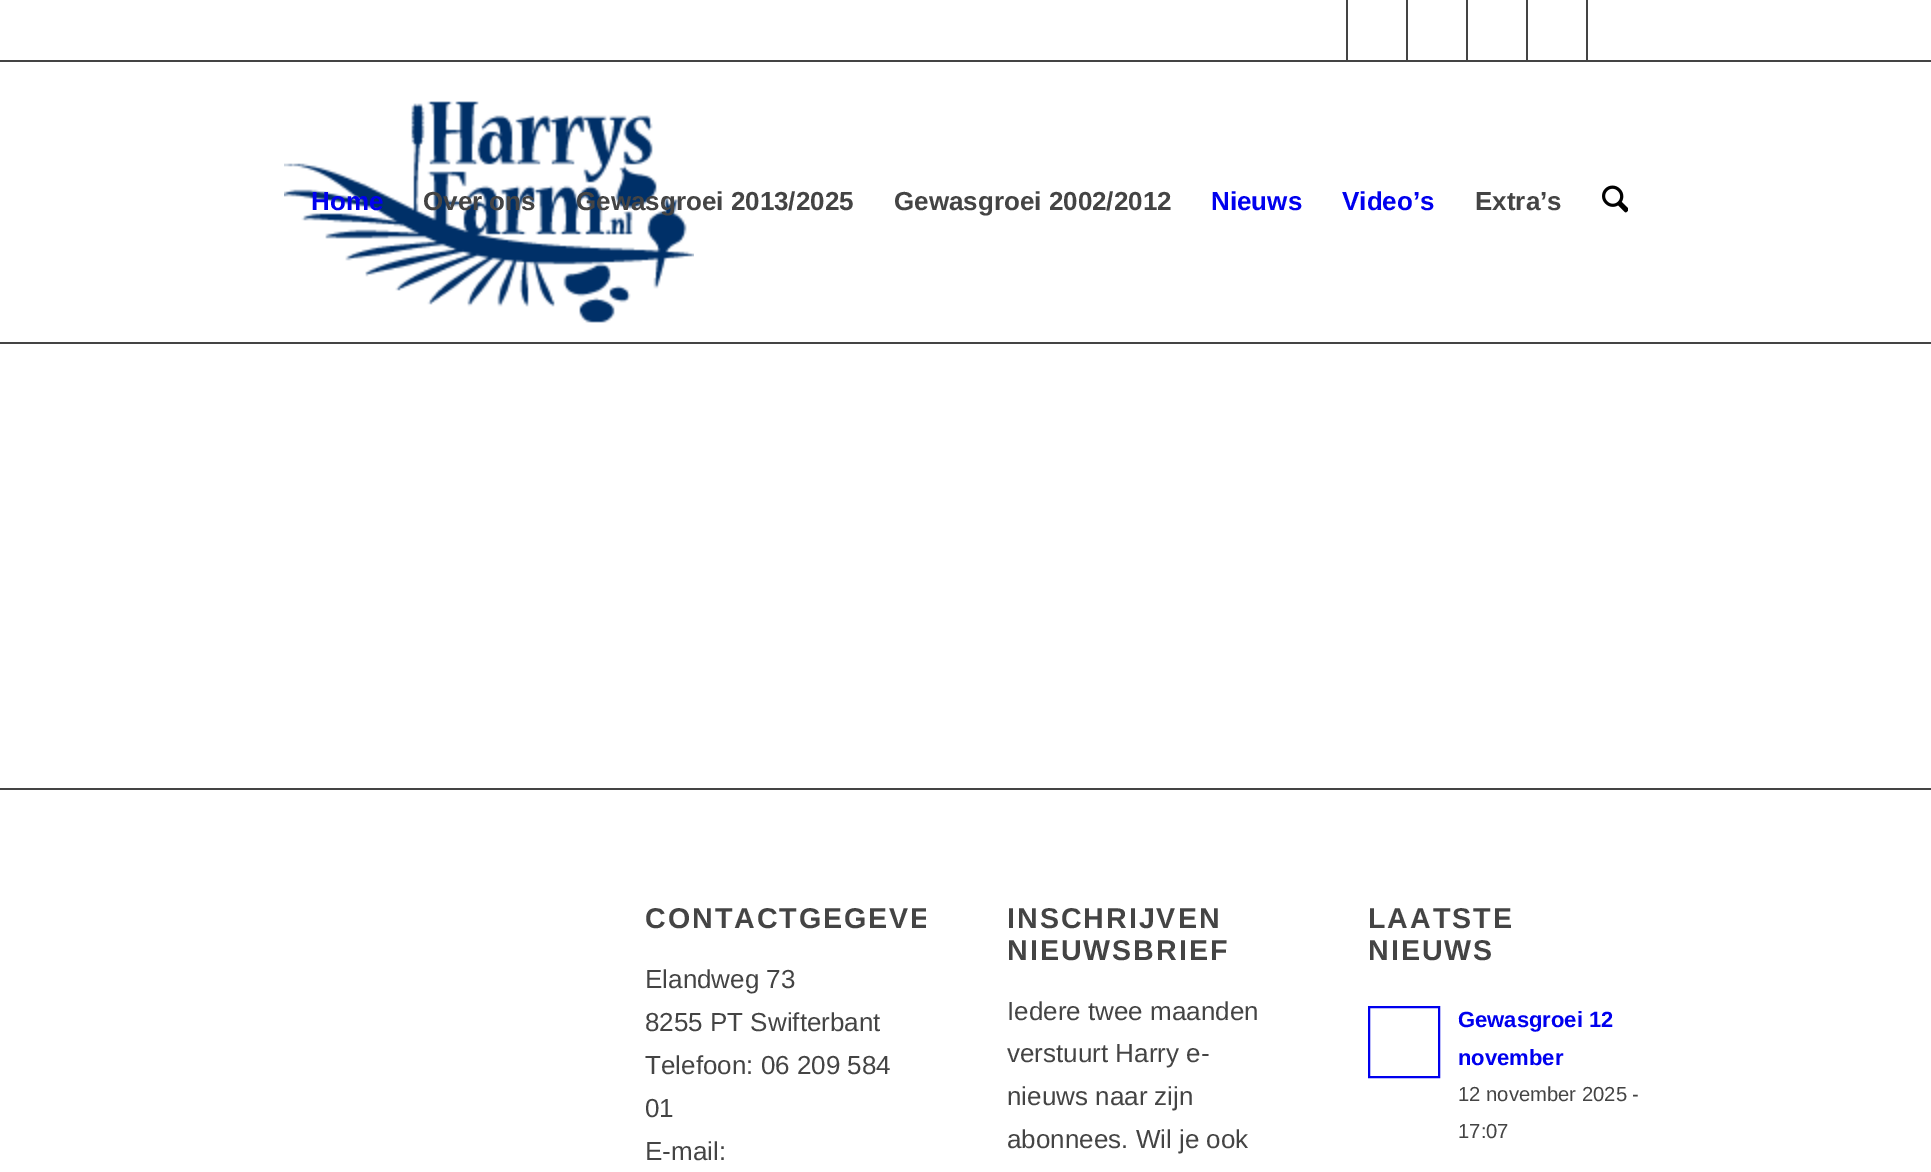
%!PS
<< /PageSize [1931 1172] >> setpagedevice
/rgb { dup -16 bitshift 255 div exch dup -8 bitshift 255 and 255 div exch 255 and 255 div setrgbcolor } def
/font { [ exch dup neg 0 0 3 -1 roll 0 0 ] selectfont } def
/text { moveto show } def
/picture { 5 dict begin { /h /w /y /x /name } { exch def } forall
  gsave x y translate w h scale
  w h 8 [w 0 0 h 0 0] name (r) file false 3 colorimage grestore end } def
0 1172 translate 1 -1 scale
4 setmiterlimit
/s1 { /LiberationSans-Bold 26 font 16#0000EE rgb } def
/s2 { /LiberationSans-Bold 26 font 16#444444 rgb } def
/s3 { /LiberationSans-Regular 26 font 16#444444 rgb } def
/s4 { /LiberationSans-Bold 22 font 16#0000EE rgb } def
/s5 { /LiberationSans-Regular 20.25 font 16#444444 rgb } def
16#FFFFFF rgb
0 0 1931 1172 rectfill
16#444444 rgb
1346 0 2 60 rectfill
1406 0 2 60 rectfill
1466 0 2 60 rectfill
1526 0 2 60 rectfill
1586 0 2 60 rectfill
0 60 1931 2 rectfill
0 342 1931 2 rectfill
(pic1.raw) 284 101 410 222 picture
s1
(Home) 311 210 text
s2
(Over ons) 423 210 text
(Gewasgroei 2013/2025) 576 210 text
(Gewasgroei 2002/2012) 894 210 text
s1
(Nieuws) 1211 210 text
(Video’s) 1342 210 text
s2
(Extra’s) 1475 210 text
(pic2.raw) 1602 185 26 28 picture
0 788 1931 2 rectfill
gsave
646 880 280 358 rectclip
/LiberationSans-Bold 28.6 font
645 928 moveto 2 0 (CONTACTGEGEVE) ashow
grestore
s3
(Elandweg 73) 645 988 text
(8255 PT Swifterbant) 645 1031 text
(Telefoon: 06 209 584) 645 1074 text
(01) 645 1117 text
(E-mail:) 645 1160 text
/LiberationSans-Bold 28.6 font
1007 928 moveto 2 0 (INSCHRIJVEN) ashow
1007 960 moveto 2 0 (NIEUWSBRIEF) ashow
s3
(Iedere twee maanden) 1007 1020 text
(verstuurt Harry e-) 1007 1062 text
(nieuws naar zijn) 1007 1105 text
(abonnees. Wil je ook) 1007 1148 text
/LiberationSans-Bold 28.6 font
1368 928 moveto 2 0 (LAATSTE) ashow
1368 960 moveto 2 0 (NIEUWS) ashow
16#0000EE rgb
2 setlinewidth
1369 1007 70 70 rectstroke
s4
(Gewasgroei 12) 1458 1027 text
(november) 1458 1065 text
s5
(12 november 2025 -) 1458 1101 text
(17:07) 1458 1138 text
showpage
